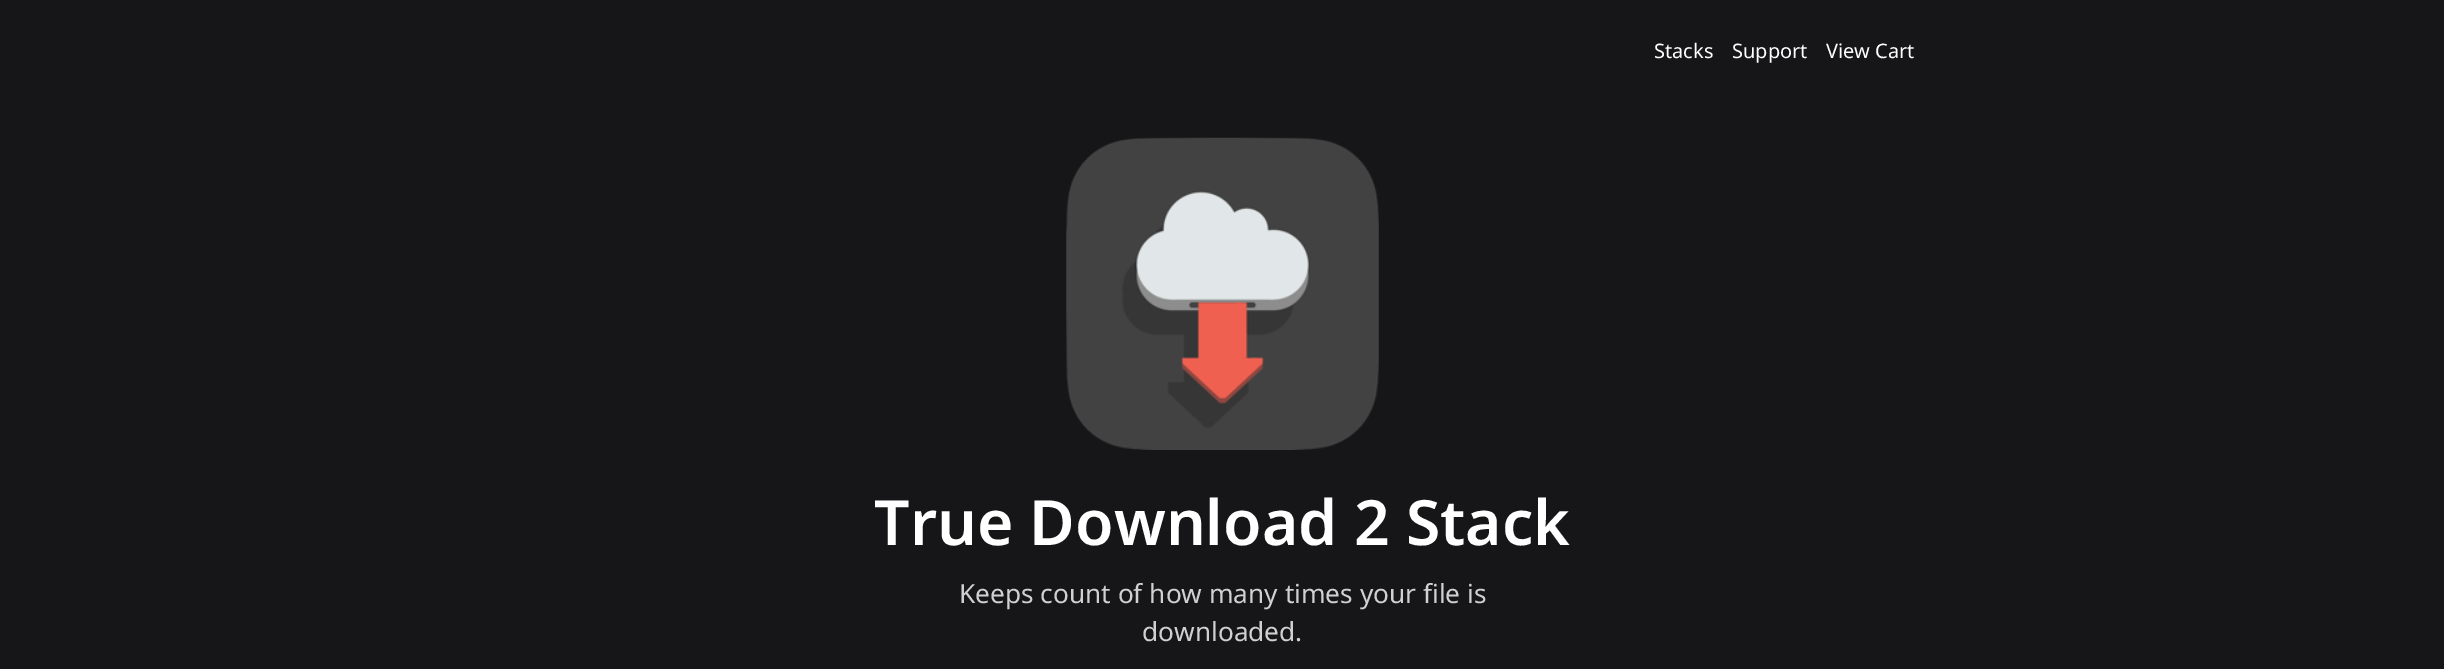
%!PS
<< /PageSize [2444 669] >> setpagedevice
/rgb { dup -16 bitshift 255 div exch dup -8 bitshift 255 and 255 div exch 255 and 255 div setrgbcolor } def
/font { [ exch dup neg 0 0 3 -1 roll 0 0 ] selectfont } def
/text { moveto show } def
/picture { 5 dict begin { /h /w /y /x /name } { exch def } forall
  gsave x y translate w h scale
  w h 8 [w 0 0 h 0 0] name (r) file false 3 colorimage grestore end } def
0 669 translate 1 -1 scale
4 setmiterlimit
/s1 { /NotoSans-Regular 20 font 16#FFFFFF rgb } def
/s2 { /NotoSans-SemiBold 62.5 font 16#FFFFFF rgb } def
/s3 { /NotoSans-Regular 26.25 font 16#D0D0D1 rgb } def
16#161618 rgb
0 0 2444 669 rectfill
s1
(Stacks) 1654 58 text
(Support) 1732 58 text
(View Cart) 1826 58 text
(pic1.raw) 1066 137 313 313 picture
s2
(True Download 2 Stack) 874 545 text
s3
(Keeps count of how many times your file is) 959 603 text
(downloaded.) 1142 641 text
showpage
